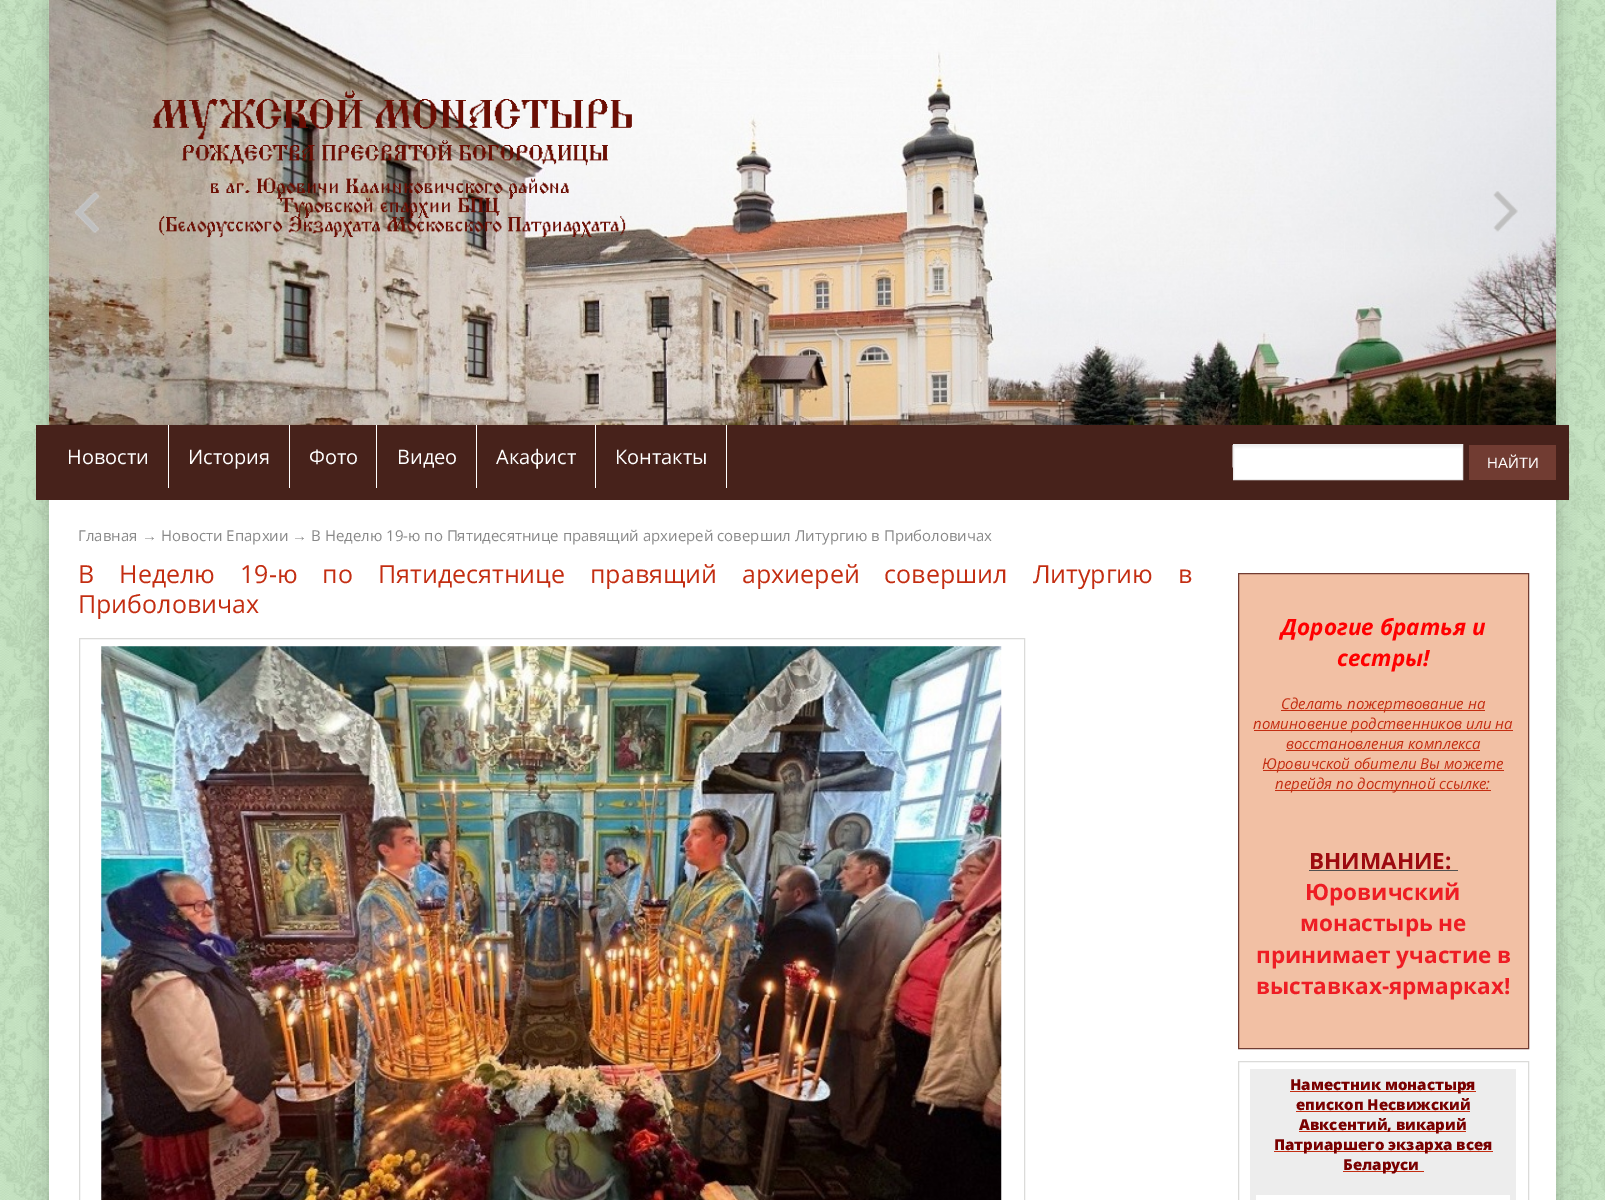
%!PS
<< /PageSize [1605 1200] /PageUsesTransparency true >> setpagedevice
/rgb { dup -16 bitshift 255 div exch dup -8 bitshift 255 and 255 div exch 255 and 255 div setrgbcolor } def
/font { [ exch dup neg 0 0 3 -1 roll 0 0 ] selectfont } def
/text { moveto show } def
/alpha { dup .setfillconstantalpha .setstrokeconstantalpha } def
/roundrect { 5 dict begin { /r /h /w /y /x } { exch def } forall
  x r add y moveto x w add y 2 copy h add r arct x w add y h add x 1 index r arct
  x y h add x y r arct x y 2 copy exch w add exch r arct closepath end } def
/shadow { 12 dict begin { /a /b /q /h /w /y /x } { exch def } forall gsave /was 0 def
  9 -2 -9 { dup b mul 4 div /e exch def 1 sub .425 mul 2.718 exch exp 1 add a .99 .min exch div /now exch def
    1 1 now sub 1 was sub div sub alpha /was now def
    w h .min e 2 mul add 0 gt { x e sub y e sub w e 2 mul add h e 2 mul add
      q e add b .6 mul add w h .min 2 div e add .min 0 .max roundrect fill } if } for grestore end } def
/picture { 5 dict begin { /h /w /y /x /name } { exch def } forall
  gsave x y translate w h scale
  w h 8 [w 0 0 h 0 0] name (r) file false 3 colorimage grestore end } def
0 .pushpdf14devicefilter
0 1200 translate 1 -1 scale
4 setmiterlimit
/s1 { /OpenSans-Regular 20 font 16#FFFFFF rgb } def
/s2 { /LiberationSans-Regular 15 font 16#FFFFFF rgb } def
/s3 { /OpenSans-Regular 15 font 16#888888 rgb } def
/s4 { /LiberationSerif-Regular 15 font 16#888888 rgb } def
/s5 { /OpenSans-Regular 25 font 16#C32D11 rgb } def
/s6 { /OpenSans-BoldItalic 22.5 font 16#FF0000 rgb } def
/s7 { /OpenSans-Italic 15 font 16#C32D11 rgb } def
/s8 { /OpenSans-Bold 22.5 font 16#9D0A0F rgb } def
/s9 { /OpenSans-Bold 22.5 font 16#EE1D24 rgb } def
/s10 { /OpenSans-ExtraBold 15 font 16#790000 rgb } def
16#FFFFFF rgb
0 0 1605 1200 rectfill
(pic1.raw) 0 0 1605 1200 picture
16#000000 rgb
49 0 1507 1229 0 9.5 0.2 shadow
(pic2.raw) 48 0 1509 425 picture
(pic3.raw) 75 192 24 41 picture
(pic4.raw) 1493 191 25 41 picture
(pic5.raw) 152 90 480 148 picture
16#47221B rgb
36 425 1533 75 rectfill
16#FFFFFF rgb
168 425 1 63 rectfill
s1
(Новости) 67 464 text
289 425 1 63 rectfill
(История) 188 464 text
376 425 1 63 rectfill
(Фото) 309 464 text
476 425 1 63 rectfill
(Видео) 397 464 text
595 425 1 63 rectfill
(Акафист) 496 464 text
726 425 1 63 rectfill
(Контакты) 615 464 text
1234 467 228 12 rectfill
(pic6.raw) 1232 445 230 23 picture
16#EDEDED rgb
1233.5 444.5 229 35 rectstroke
16#713C32 rgb
1469 445 87 35 rectfill
s2
(НАЙТИ) 1487 468 text
49 500 1507 700 rectfill
s3
(Главная) 78 541 text
s4
(→) 142 541 text
s3
(Новости Епархии) 161 541 text
s4
(→) 292 541 text
s3
(В Неделю 19-ю по Пятидесятнице правящий архиерей совершил Литургию в Приболовичах) 311 541 text
/OpenSans-Regular 25 font
16#C32D11 rgb
78 583 moveto 18.5 0 32 (В Неделю 19-ю по Пятидесятнице правящий архиерей совершил Литургию в) widthshow
(Приболовичах) 78 613 text
16#DBDBD9 rgb
79.5 638.5 945 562 rectstroke
(pic7.raw) 101 646 901 554 picture
16#F2C0A4 rgb
1238.5 573.5 moveto 1528.5 573.5 lineto 1528.5 1048.5 lineto 1238.5 1048.5 lineto closepath gsave fill grestore
16#713C32 rgb
stroke
s6
(Дорогие братья и) 1281 635 text
(сестры!) 1337 666 text
16#C32D11 rgb
1281 710 204 1 rectfill
s7
(Сделать пожертвование на) 1281 709 text
1254 730 237 1 rectfill
(поминовение родственников или на) 1253 729 text
(восстановления комплекса) 1286 749 text
1491 730 22 1 rectfill
1286 750 194 1 rectfill
1263 770 241 1 rectfill
(Юровичской обители Вы можете) 1262 769 text
1275 790 216 1 rectfill
(перейдя по доступной ссылке:) 1275 789 text
s8
(ВНИМАНИЕ:) 1309 869 text
16#505050 rgb
1309 870 149 1 rectfill
s9
(Юровичский) 1305 900 text
(монастырь не) 1300 931 text
(принимает участие в) 1256 963 text
(выставках-ярмарках!) 1256 994 text
16#DBDBD9 rgb
1238.5 1061.5 290 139 rectstroke
16#EDEDED rgb
1250 1069 266 131 rectfill
16#C32D11 rgb
1290 1091 186 1 rectfill
s10
(Наместник монастыря) 1290 1090 text
(епископ Несвижский) 1296 1110 text
16#C32D11 rgb
1296 1111 174 1 rectfill
1299 1131 167 1 rectfill
s10
(Авксентий, викарий) 1299 1130 text
16#C32D11 rgb
1274 1151 219 1 rectfill
s10
(Патриаршего экзарха всея) 1274 1150 text
16#C32D11 rgb
1343 1171 81 1 rectfill
s10
(Беларуси) 1343 1170 text
16#FFFFFF rgb
1256 1195 254 5 rectfill
.poppdf14devicefilter showpage
